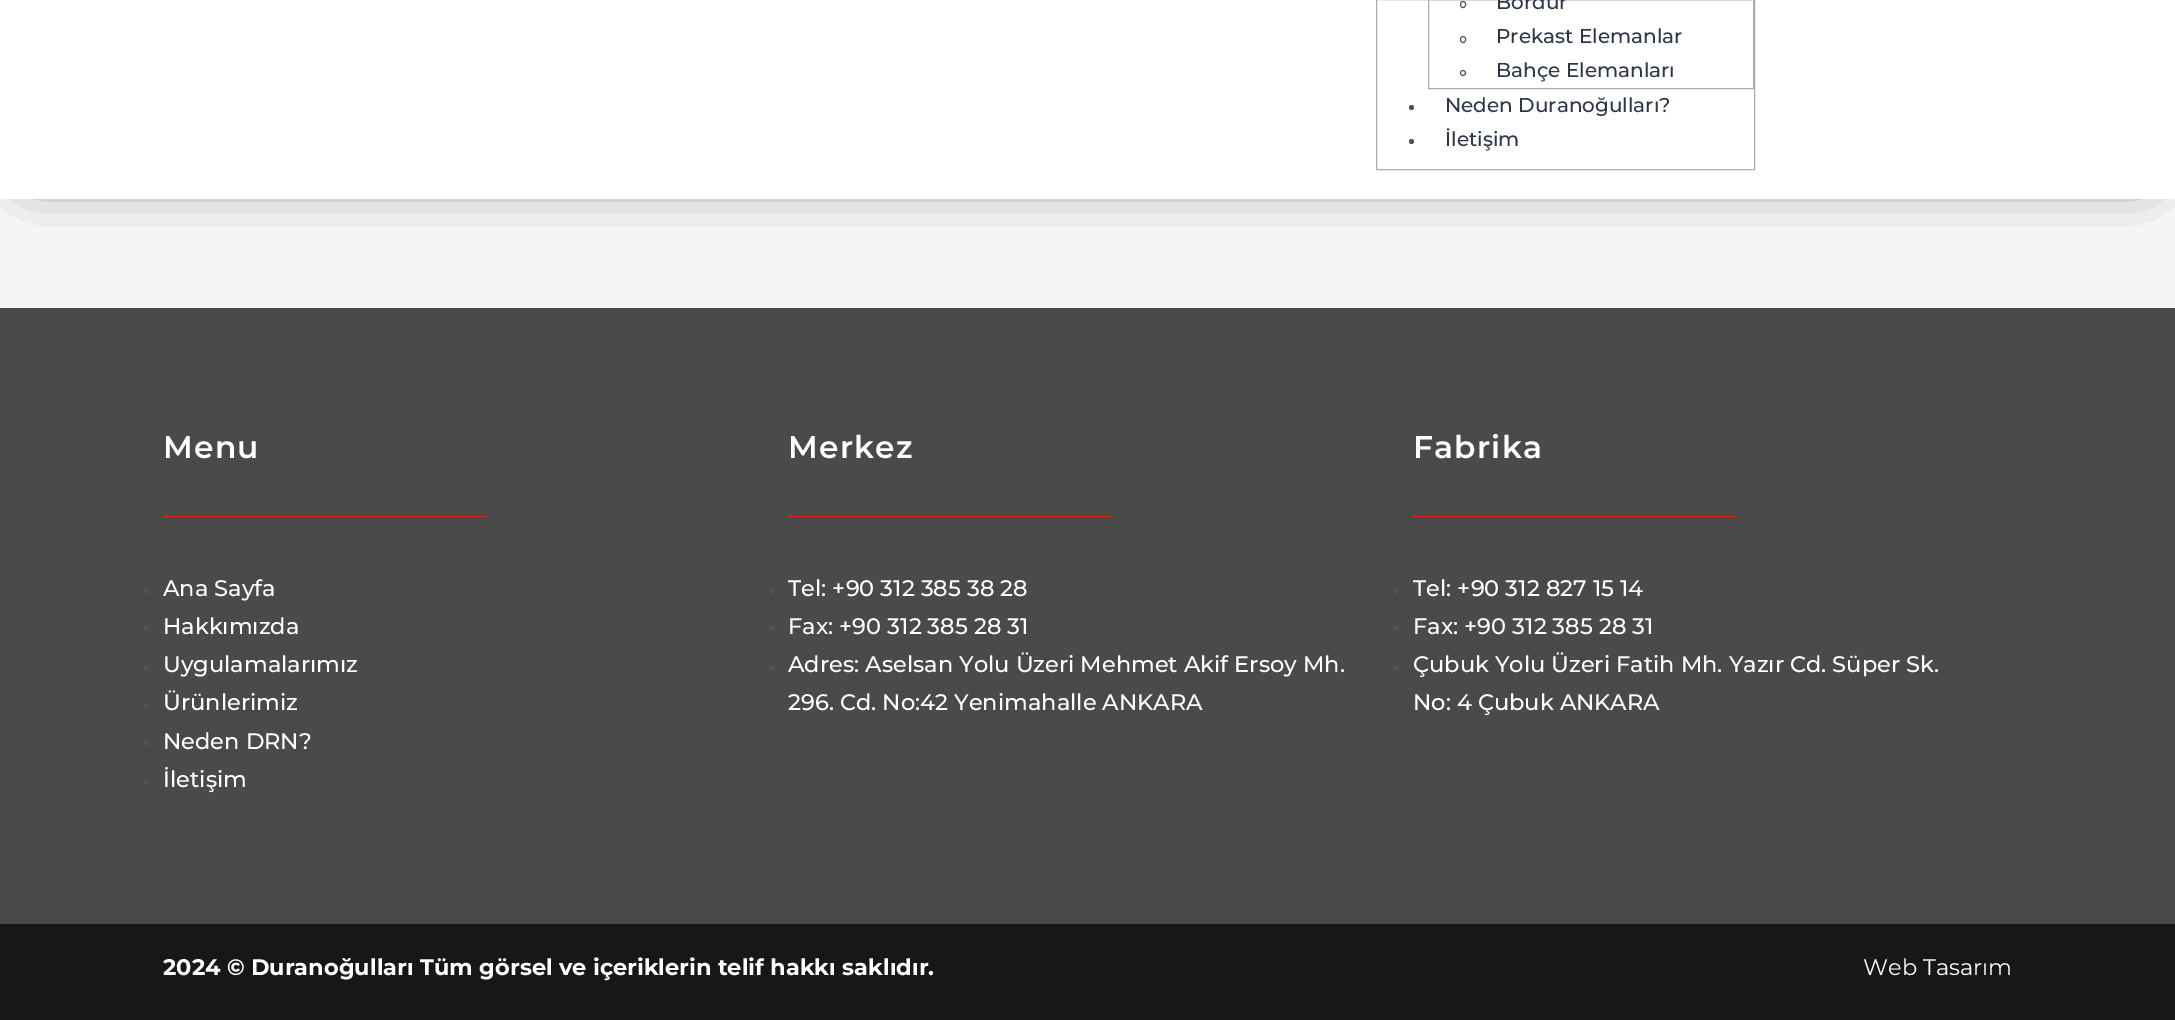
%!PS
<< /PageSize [2175 1020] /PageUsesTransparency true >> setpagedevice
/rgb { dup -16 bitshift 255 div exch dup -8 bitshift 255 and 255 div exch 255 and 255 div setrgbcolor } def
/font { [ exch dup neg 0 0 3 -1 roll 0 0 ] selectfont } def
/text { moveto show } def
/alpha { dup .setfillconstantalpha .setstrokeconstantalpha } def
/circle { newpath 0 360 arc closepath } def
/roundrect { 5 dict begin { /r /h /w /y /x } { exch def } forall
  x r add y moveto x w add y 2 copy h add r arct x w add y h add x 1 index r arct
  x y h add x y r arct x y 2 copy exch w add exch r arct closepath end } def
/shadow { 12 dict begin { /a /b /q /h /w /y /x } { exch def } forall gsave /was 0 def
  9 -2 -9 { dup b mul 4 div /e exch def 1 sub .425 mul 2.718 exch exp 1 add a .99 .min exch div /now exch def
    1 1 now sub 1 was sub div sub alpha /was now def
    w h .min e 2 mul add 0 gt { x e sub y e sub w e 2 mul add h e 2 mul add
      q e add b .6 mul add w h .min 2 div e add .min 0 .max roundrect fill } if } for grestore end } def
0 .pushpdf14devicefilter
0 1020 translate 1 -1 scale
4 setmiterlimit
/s1 { /Montserrat-Medium 20 font 16#2E3649 rgb } def
/s2 { /Montserrat-Medium 22.5 font 16#FFFFFF rgb } def
/s3 { /Montserrat-Bold 22.5 font 16#FFFFFF rgb } def
/s4 { /Montserrat-Regular 22.5 font 16#FFFFFF rgb } def
16#F5F5F5 rgb
0 0 2175 1020 rectfill
16#000000 rgb
34 -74 2107 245 0 24.5 0.99 shadow
16#FFFFFF rgb
0 0 2175 199 rectfill
16#ABABAB rgb
1376.5 -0.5 378 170 rectstroke
1428.5 -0.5 325 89 rectstroke
16#535353 rgb
1460.5 1.5 5 6 2.5 roundrect stroke
s1
(Bordür) 1496 9 text
16#535353 rgb
1460.5 36.5 5 6 2.5 roundrect stroke
s1
(Prekast Elemanlar) 1496 43 text
16#535353 rgb
1463 73 2.5 circle stroke
s1
(Bahçe Elemanları) 1496 77 text
16#535353 rgb
1411.5 107.5 2.5 circle fill
s1
(Neden Duranoğulları?) 1445 112 text
16#535353 rgb
1411.5 141.5 2.5 circle fill
s1
(İletişim) 1445 146 text
16#4A4A4A rgb
0 308 2175 616 rectfill
/Montserrat-SemiBold 31.25 font
16#FFFFFF rgb
163 458 moveto 1.25 0 (Menu) ashow
16#E9270D rgb
163 516 323 1 rectfill
16#535353 rgb
146.5 591.5 2.5 circle fill
s2
(Ana Sayfa) 163 596 text
16#535353 rgb
146.5 628.5 2.5 circle fill
s2
(Hakkımızda) 163 634 text
16#535353 rgb
146.5 667.5 2.5 circle fill
s2
(Uygulamalarımız) 163 672 text
16#535353 rgb
146.5 705.5 2.5 circle fill
s2
(Ürünlerimiz) 163 710 text
16#535353 rgb
146.5 743.5 2.5 circle fill
s2
(Neden DRN?) 163 749 text
16#535353 rgb
146.5 782.5 2.5 circle fill
s2
(İletişim) 163 787 text
/Montserrat-SemiBold 31.25 font
788 458 moveto 1.25 0 (Merkez) ashow
16#E9270D rgb
788 516 323 1 rectfill
16#535353 rgb
771.5 591.5 2.5 circle fill
s2
(Tel: +90 312 385 38 28) 788 596 text
16#535353 rgb
771.5 628.5 2.5 circle fill
s2
(Fax: +90 312 385 28 31) 788 634 text
16#535353 rgb
771.5 667.5 2.5 circle fill
s2
(Adres: Aselsan Yolu Üzeri Mehmet Akif Ersoy Mh.) 788 672 text
(296. Cd. No:42 Yenimahalle ANKARA) 788 710 text
/Montserrat-SemiBold 31.25 font
1413 458 moveto 1.25 0 (Fabrika) ashow
16#E9270D rgb
1413 516 323 1 rectfill
16#535353 rgb
1396.5 591.5 2.5 circle fill
s2
(Tel: +90 312 827 15 14) 1413 596 text
16#535353 rgb
1396.5 628.5 2.5 circle fill
s2
(Fax: +90 312 385 28 31) 1413 634 text
16#535353 rgb
1396.5 667.5 2.5 circle fill
s2
(Çubuk Yolu Üzeri Fatih Mh. Yazır Cd. Süper Sk.) 1413 672 text
(No: 4 Çubuk ANKARA) 1413 710 text
16#171717 rgb
0 924 2175 96 rectfill
s3
(2024 © Duranoğulları Tüm görsel ve içeriklerin telif hakkı saklıdır.) 163 975 text
s4
(Web Tasarım) 1863 975 text
.poppdf14devicefilter showpage
